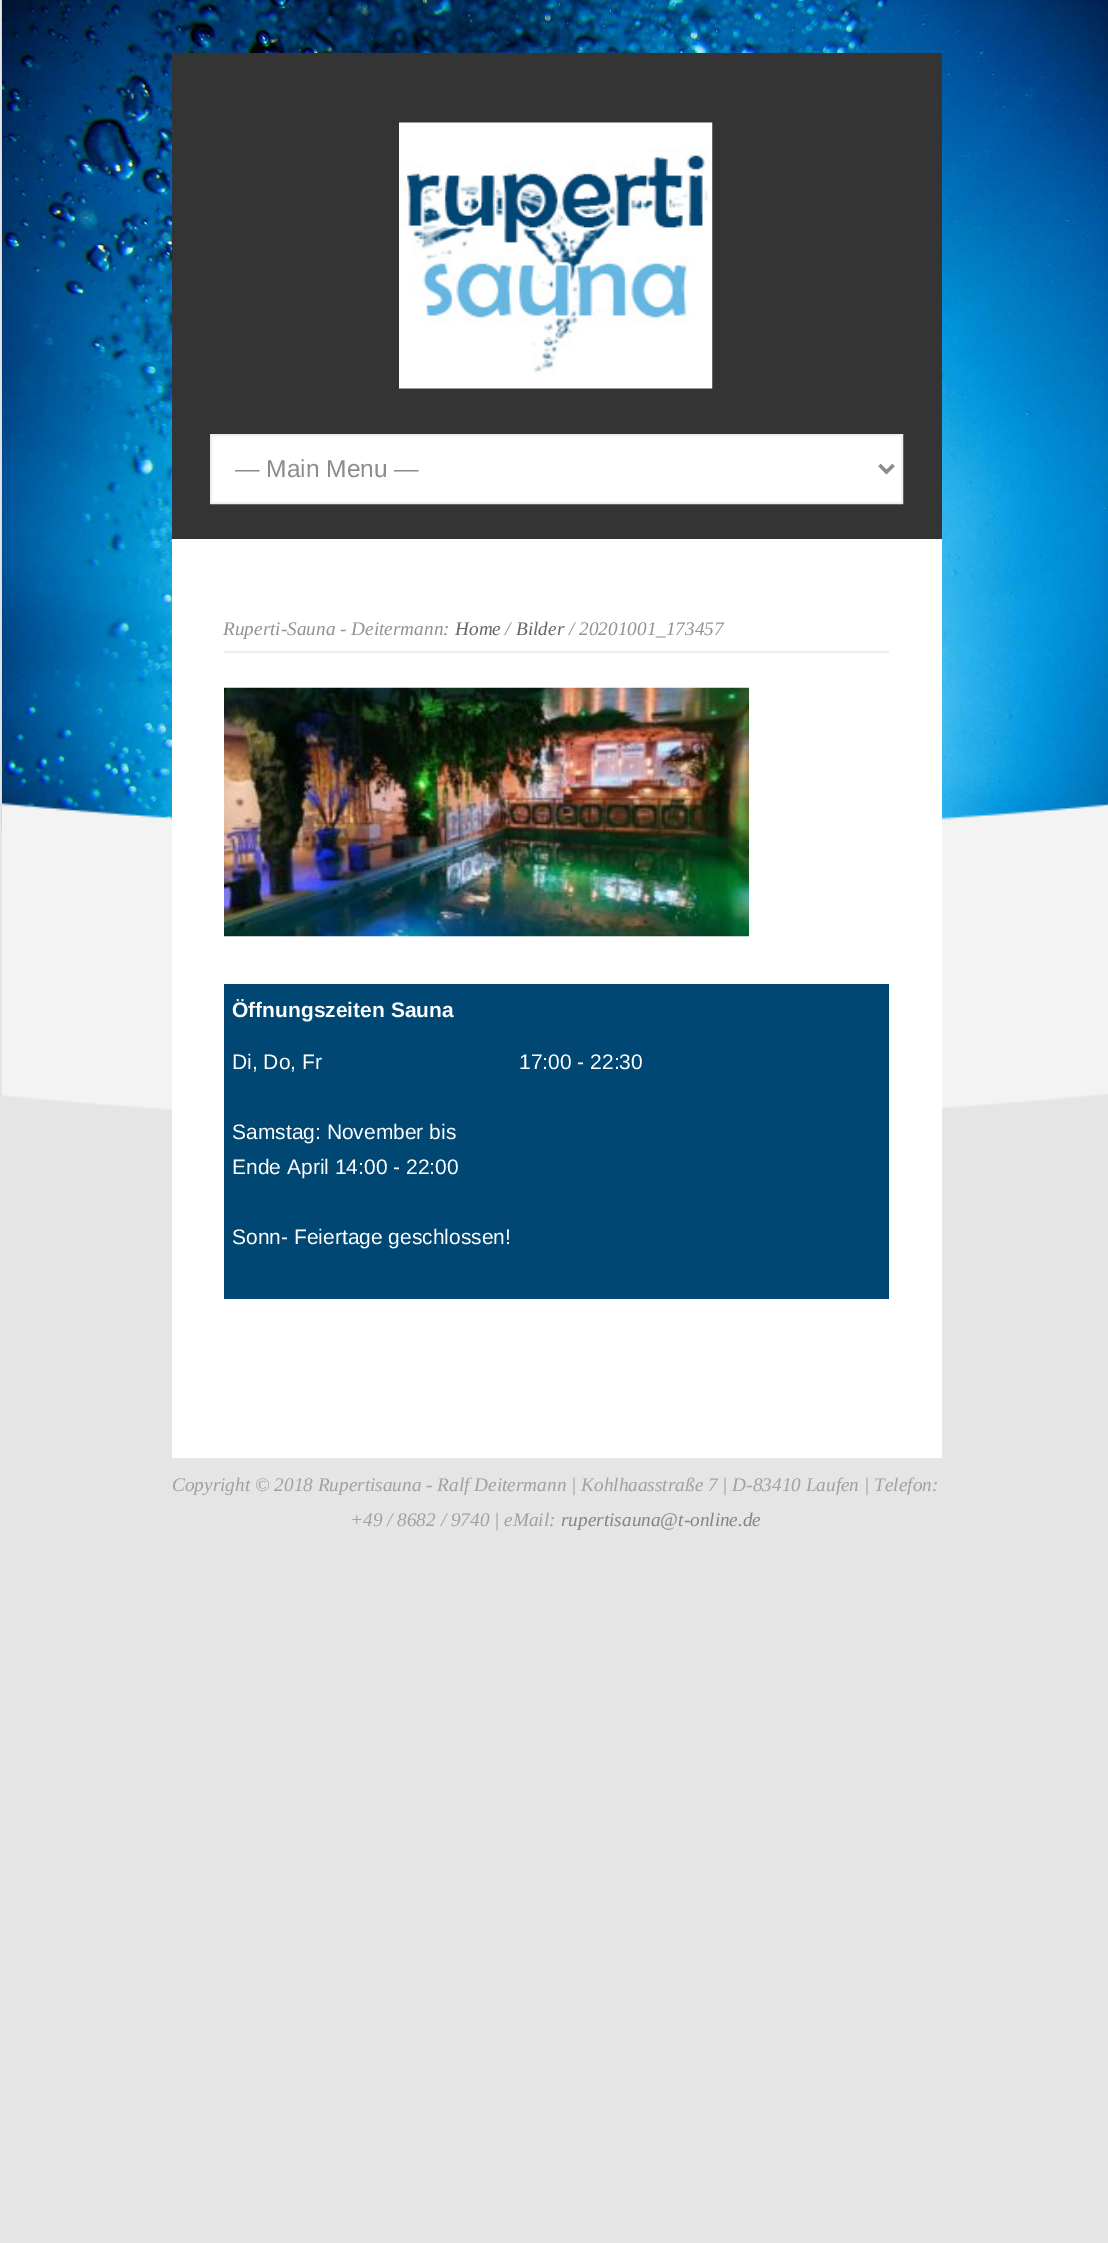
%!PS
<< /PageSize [1108 2243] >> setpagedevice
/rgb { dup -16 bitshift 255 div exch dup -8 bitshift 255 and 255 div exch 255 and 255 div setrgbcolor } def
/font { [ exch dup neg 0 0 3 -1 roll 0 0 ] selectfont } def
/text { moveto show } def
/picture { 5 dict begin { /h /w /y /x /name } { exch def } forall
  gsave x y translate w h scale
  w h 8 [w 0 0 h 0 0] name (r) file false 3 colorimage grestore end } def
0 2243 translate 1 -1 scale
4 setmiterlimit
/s1 { /LiberationSans-Regular 24.5 font 16#8C8C8C rgb } def
/s2 { /LiberationSerif-Italic 19.25 font 16#929292 rgb } def
/s3 { /LiberationSerif-Italic 19.25 font 16#666666 rgb } def
/s4 { /LiberationSans-Bold 21 font 16#FFFFFF rgb } def
/s5 { /LiberationSans-Regular 21 font 16#FFFFFF rgb } def
/s6 { /LiberationSerif-Italic 19.25 font 16#A1A1A1 rgb } def
/s7 { /LiberationSerif-Italic 19.25 font 16#848484 rgb } def
16#E5E5E5 rgb
0 0 1108 2243 rectfill
(pic1.raw) 1 0 1107 831 picture
(pic2.raw) 2 802 1106 308 picture
16#343434 rgb
172 53 770 486 rectfill
(pic3.raw) 399 122 314 267 picture
16#FFFFFF rgb
211 435 moveto 902 435 lineto 902 503 lineto 211 503 lineto closepath gsave fill grestore
16#EEEEEE rgb
2 setlinewidth
stroke
16#8C8C8C rgb
3.5 setlinewidth
879.5 465 moveto 886.5 472 lineto 893.5 465 lineto stroke
s1
(— Main Menu —) 235 477 text
16#FFFFFF rgb
172 539 770 919 rectfill
16#EEEEEE rgb
224 651 665 2 rectfill
s2
(Ruperti-Sauna - Deitermann:) 223 635 text
s3
(Home) 455 635 text
s2
(/) 505 635 text
s3
(Bilder) 516 635 text
s2
(/ 20201001_173457) 569 635 text
(pic4.raw) 224 687 525 250 picture
16#004774 rgb
224 984 665 315 rectfill
s4
(Öffnungszeiten Sauna) 232 1017 text
s5
(Di, Do, Fr) 232 1069 text
(17:00 - 22:30) 519 1069 text
(Samstag: November bis) 232 1139 text
(Ende April 14:00 - 22:00) 232 1174 text
(Sonn- Feiertage geschlossen!) 232 1244 text
s6
(Copyright © 2018 Rupertisauna - Ralf Deitermann | Kohlhaasstraße 7 | D-83410 Laufen | Telefon:) 172 1491 text
(+49 / 8682 / 9740 | eMail:) 350 1526 text
s7
(rupertisauna@t-online.de) 561 1526 text
showpage
